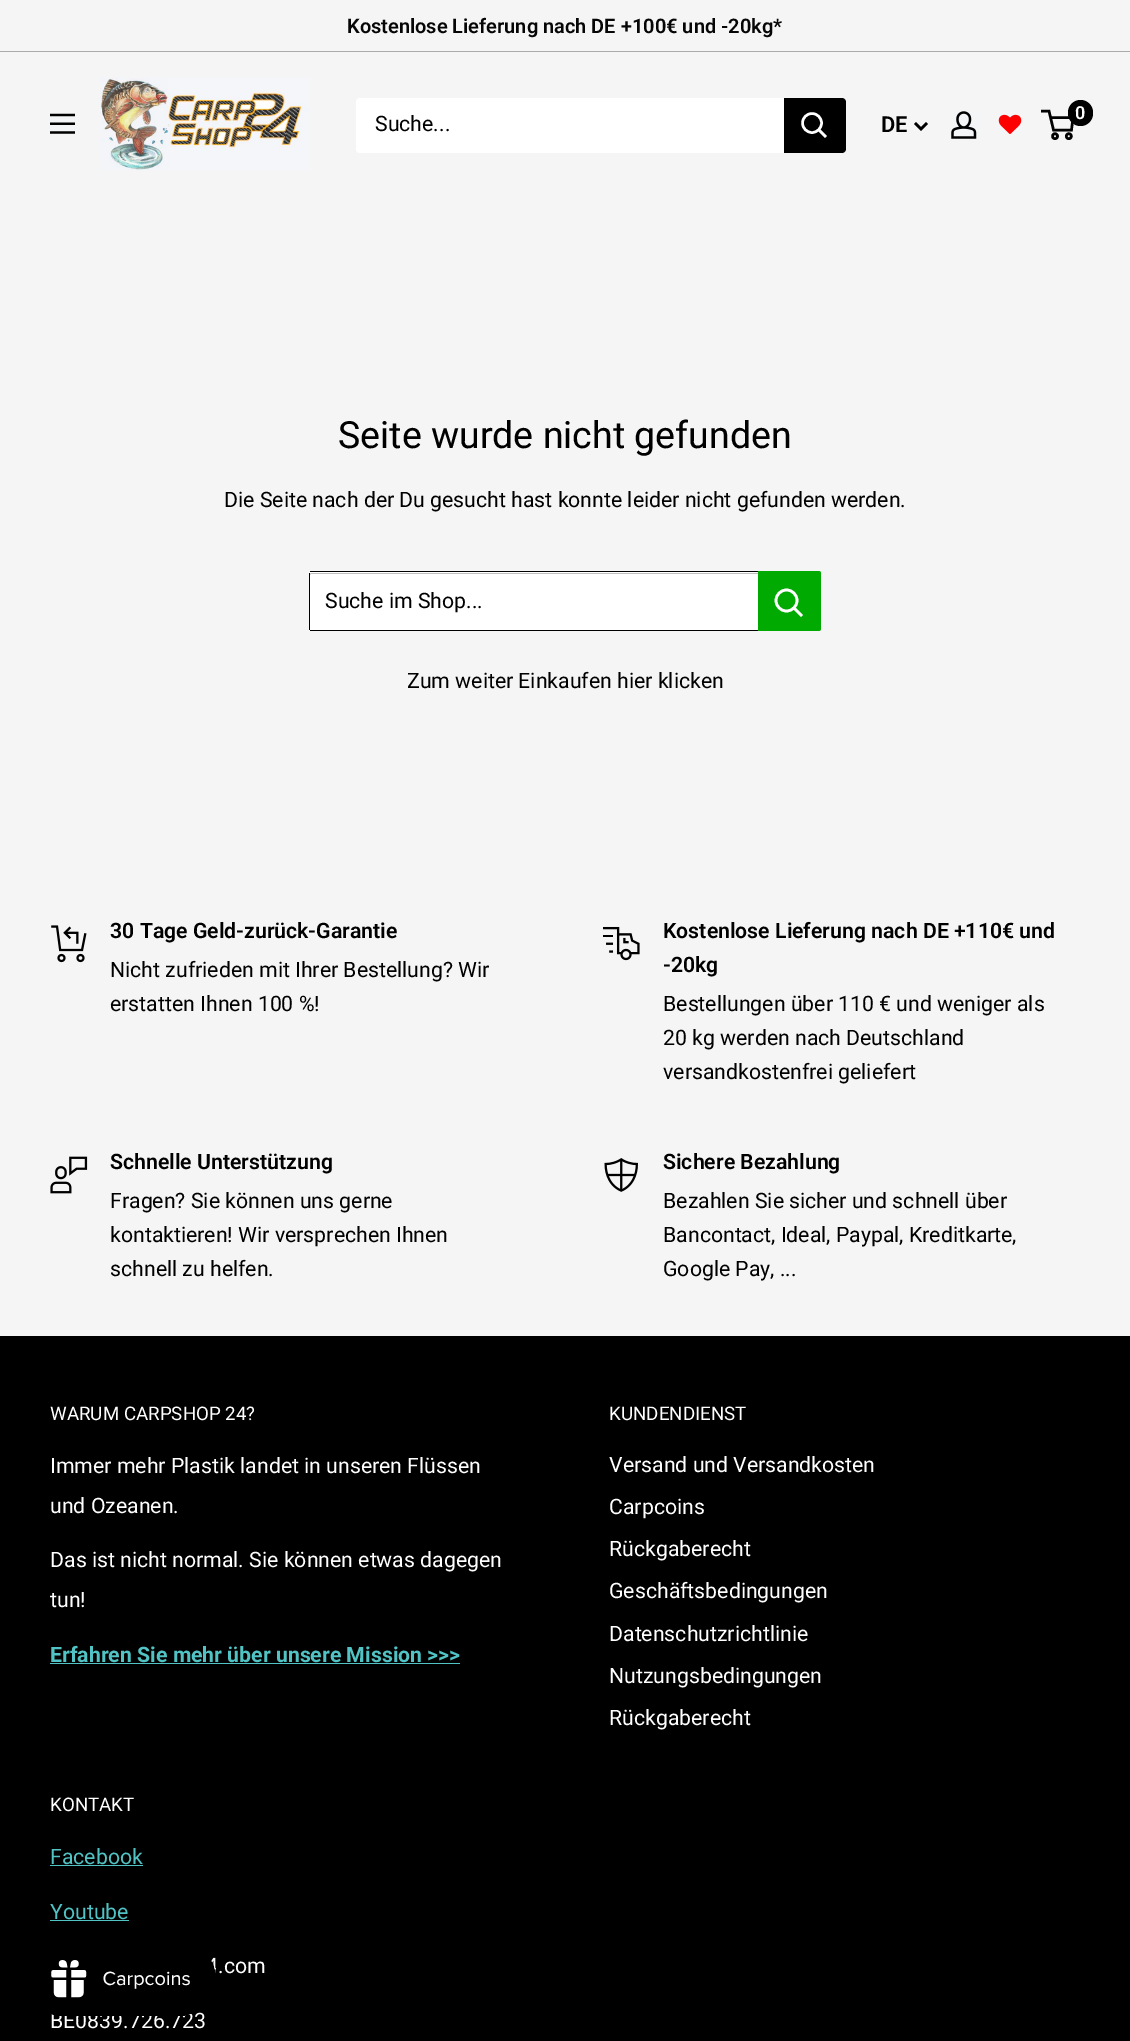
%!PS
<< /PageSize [1130 2041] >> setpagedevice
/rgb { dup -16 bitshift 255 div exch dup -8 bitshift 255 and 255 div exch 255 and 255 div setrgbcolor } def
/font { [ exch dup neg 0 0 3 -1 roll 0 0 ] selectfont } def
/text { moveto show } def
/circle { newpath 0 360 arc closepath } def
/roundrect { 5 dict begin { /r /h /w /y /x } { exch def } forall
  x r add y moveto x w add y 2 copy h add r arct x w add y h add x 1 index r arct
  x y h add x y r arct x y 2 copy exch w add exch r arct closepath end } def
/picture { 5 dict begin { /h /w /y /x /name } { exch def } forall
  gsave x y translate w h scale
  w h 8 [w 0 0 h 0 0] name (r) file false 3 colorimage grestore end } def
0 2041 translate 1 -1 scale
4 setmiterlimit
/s1 { /Roboto-SemiBold 20 font 16#060606 rgb } def
/s2 { /Roboto-Regular 21.25 font 16#000000 rgb } def
/s3 { /Roboto-SemiBold 22 font 16#000000 rgb } def
/s4 { /Roboto-SemiBold 18 font 16#FFFFFF rgb } def
/s5 { /Roboto-Regular 37.5 font 16#000000 rgb } def
/s6 { /Roboto-SemiBold 21.25 font 16#000000 rgb } def
/s7 { /Roboto-Regular 18.75 font 16#FFFFFF rgb } def
/s8 { /Roboto-Regular 21.25 font 16#FFFFFF rgb } def
/s9 { /Roboto-Bold 21.25 font 16#52C3C4 rgb } def
/s10 { /Roboto-Regular 21.25 font 16#52C3C4 rgb } def
16#F5F5F5 rgb
0 0 1130 2041 rectfill
16#AAACAC rgb
0 51 1130 1 rectfill
s1
(Kostenlose Lieferung nach DE +100€ und -20kg*) 347 33 text
(pic1.raw) 50 113 25 21 picture
(pic2.raw) 100 77 210 93 picture
16#FFFFFF rgb
356 98 490 55 4 roundrect fill
s2
(Suche...) 375 131 text
784 98 moveto 842 98 lineto 844 98 846 100 846 102 curveto 846 149 lineto 846 151 844 153 842 153 curveto 784 153 lineto closepath fill
16#FFFFFF rgb
2.5 setlinewidth
2 setlinecap
825 136 moveto 819 130 lineto stroke
0 setlinecap
812 123 9.5 circle stroke
s3
(DE) 881 132 text
2 setlinecap
926 124 moveto 921 129 lineto 916 124 lineto stroke
(pic3.raw) 951 111 26 28 picture
(pic4.raw) 998 114 24 20 picture
0 setlinecap
1055 136.2 2.5 circle stroke
1068.8 136.2 2.5 circle stroke
1050.5 117.5 moveto 1073 117.5 lineto 1071.5 130 lineto 1053.5 130 lineto 1049 111 lineto 1041 111 lineto stroke
1068 100 25 26 12.5 roundrect fill
s4
(0) 1075 119 text
s5
(Seite wurde nicht gefunden) 338 448 text
s2
(Die Seite nach der Du gesucht hast konnte leider nicht gefunden werden.) 224 507 text
16#FFFFFF rgb
311.5 571 moveto 758 571 lineto 758 631 lineto 311.5 631 lineto 310 631 309 630 309 628.5 curveto 309 573.5 lineto 309 572 310 571 311.5 571 curveto closepath fill
16#BFBFBF rgb
311 574 moveto 758 574 lineto 758 573 lineto 311 573 lineto 310 574 lineto 310 575 lineto closepath fill
16#000000 rgb
310 571 448 1 rectfill
310 630 448 1 rectfill
309 573 1 57 rectfill
(Suche im Shop...) 325 608 text
16#00AA00 rgb
758 571 moveto 818.5 571 lineto 820 571 821 572 821 573.5 curveto 821 628.5 lineto 821 630 820 631 818.5 631 curveto 758 631 lineto closepath fill
16#FFFFFF rgb
2.7 setlinewidth
2 setlinecap
801 615 moveto 794 608 lineto stroke
0 setlinecap
786.5 600.5 10.5 circle stroke
s2
(Zum weiter Einkaufen hier klicken) 407 688 text
(pic5.raw) 51 925 36 38 picture
s6
(30 Tage Geld-zurück-Garantie) 110 938 text
s2
(Nicht zufrieden mit Ihrer Bestellung? Wir) 110 977 text
(erstatten Ihnen 100 %!) 110 1011 text
(pic6.raw) 603 926 37 35 picture
s6
(Kostenlose Lieferung nach DE +110€ und) 663 938 text
(-20kg) 663 972 text
s2
(Bestellungen über 110 € und weniger als) 663 1011 text
(20 kg werden nach Deutschland) 663 1045 text
(versandkostenfrei geliefert) 663 1079 text
(pic7.raw) 50 1156 38 38 picture
s6
(Schnelle Unterstützung) 110 1169 text
s2
(Fragen? Sie können uns gerne) 110 1208 text
(kontaktieren! Wir versprechen Ihnen) 110 1242 text
(schnell zu helfen.) 110 1276 text
(pic8.raw) 604 1158 34 34 picture
s6
(Sichere Bezahlung) 663 1169 text
s2
(Bezahlen Sie sicher und schnell über) 663 1208 text
(Bancontact, Ideal, Paypal, Kreditkarte,) 663 1242 text
(Google Pay, ...) 663 1276 text
0 1336 1130 705 rectfill
s7
(WARUM CARPSHOP 24?) 50 1420 text
s8
(Immer mehr Plastik landet in unseren Flüssen) 50 1473 text
(und Ozeanen.) 50 1513 text
(Das ist nicht normal. Sie können etwas dagegen) 50 1567 text
(tun!) 50 1607 text
s9
(Erfahren Sie mehr über unsere Mission >>>) 50 1662 text
50 1663 410 1 rectfill
s7
(KUNDENDIENST) 609 1420 text
s8
(Versand und Versandkosten) 609 1472 text
(Carpcoins) 609 1514 text
(Rückgaberecht) 609 1556 text
(Geschäftsbedingungen) 609 1598 text
(Datenschutzrichtlinie) 609 1641 text
(Nutzungsbedingungen) 609 1683 text
(Rückgaberecht) 609 1725 text
s7
(KONTAKT) 50 1811 text
s10
(Facebook) 50 1864 text
50 1865 93 1 rectfill
(Youtube) 50 1919 text
50 1920 79 1 rectfill
s8
(.com) 218 1973 text
(BE0839.726.723) 50 2028 text
(pic9.raw) 51 1956 165 60 picture
showpage
